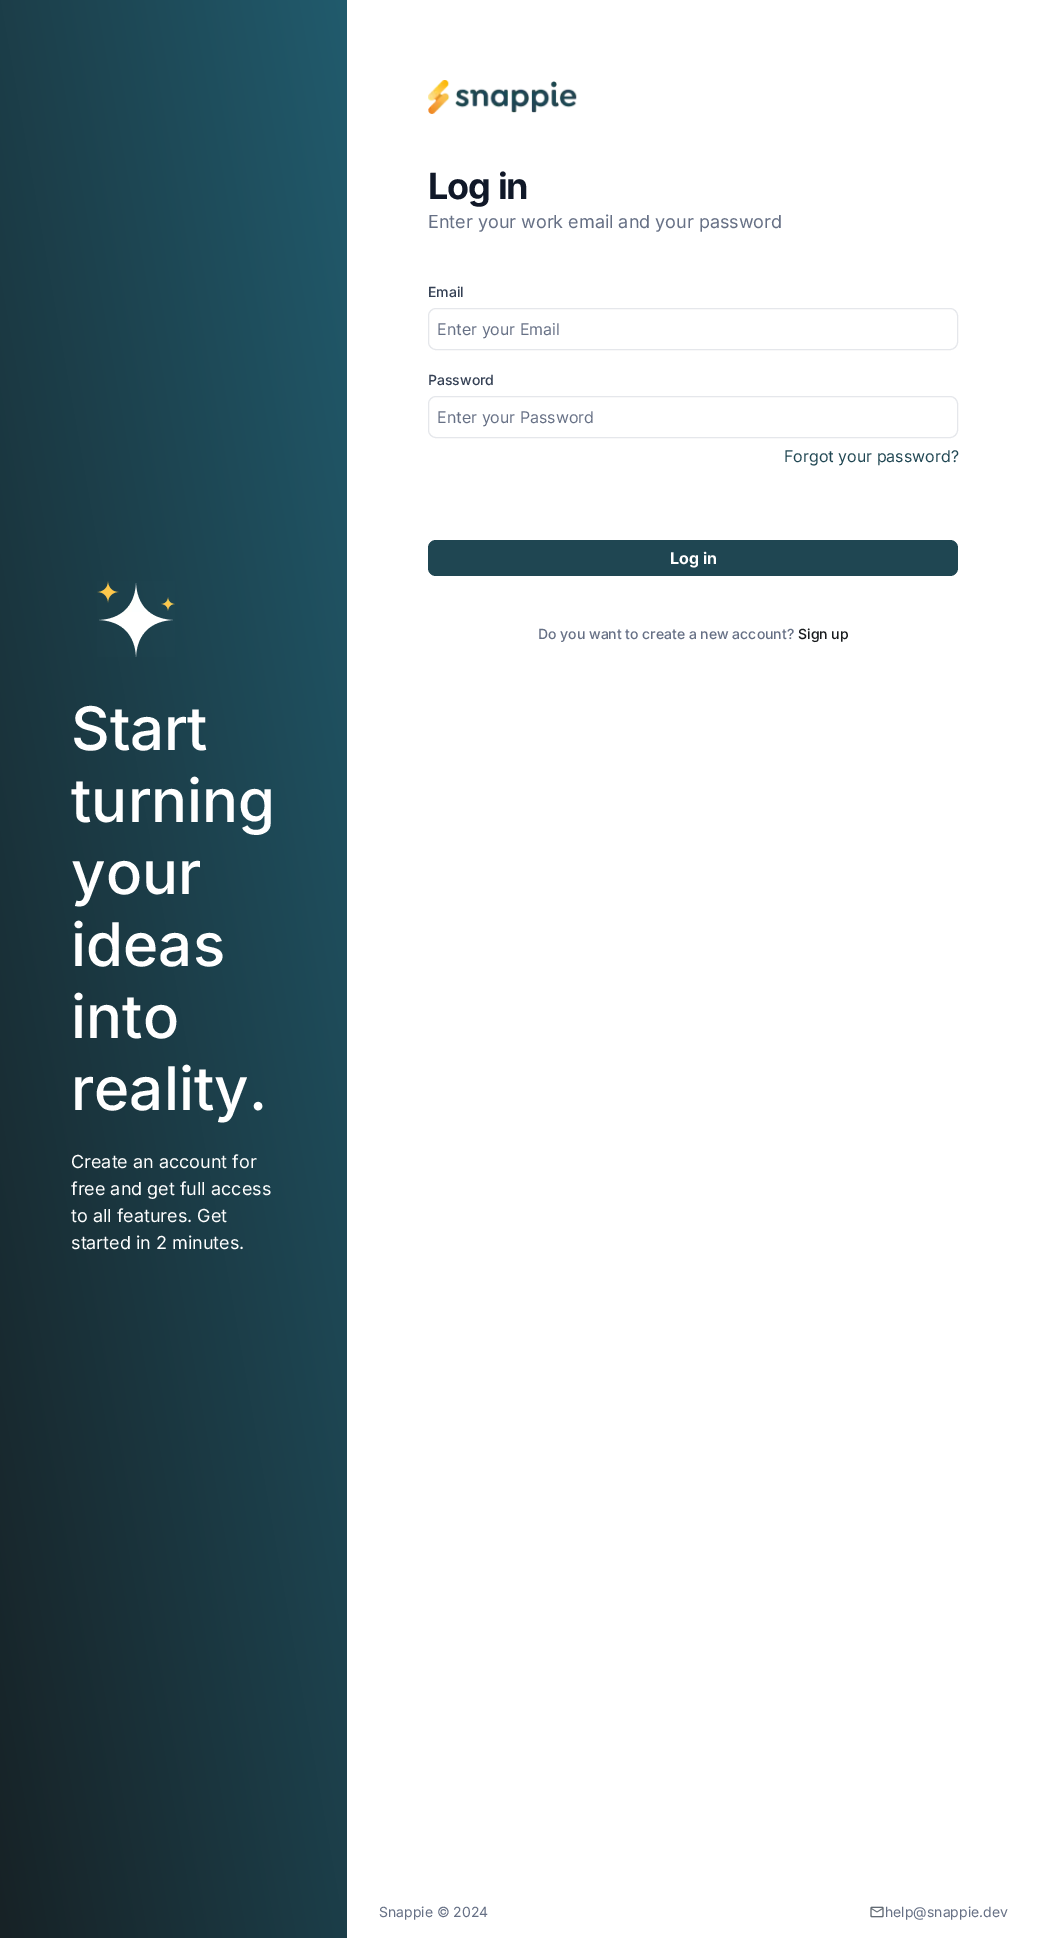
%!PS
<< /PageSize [1040 1938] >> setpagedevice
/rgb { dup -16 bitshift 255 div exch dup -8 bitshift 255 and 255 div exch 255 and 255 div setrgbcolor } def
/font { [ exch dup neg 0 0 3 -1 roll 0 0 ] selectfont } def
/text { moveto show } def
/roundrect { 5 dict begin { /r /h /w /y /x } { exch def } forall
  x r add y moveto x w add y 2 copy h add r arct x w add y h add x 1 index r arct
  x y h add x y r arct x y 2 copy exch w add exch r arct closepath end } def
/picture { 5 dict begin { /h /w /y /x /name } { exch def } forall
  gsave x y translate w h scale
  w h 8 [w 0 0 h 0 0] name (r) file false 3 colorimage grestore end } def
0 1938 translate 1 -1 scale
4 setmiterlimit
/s1 { /Inter-Medium 60 font 16#FFFFFF rgb } def
/s2 { /Inter-Regular 18 font 16#FFFFFF rgb } def
/s3 { /Inter-Regular 18 font 16#667085 rgb } def
/s4 { /Inter-Medium 14 font 16#344054 rgb } def
/s5 { /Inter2-Regular 16 font 16#667085 rgb } def
/s6 { /Inter2-Regular 16 font 16#1F4652 rgb } def
/s7 { /Inter-Bold 16 font 16#FFFFFF rgb } def
/s8 { /Inter-Medium 14 font 16#667085 rgb } def
/s9 { /Inter-Medium 14 font 16#171A1C rgb } def
/s10 { /Inter-Regular 14 font 16#667085 rgb } def
16#FFFFFF rgb
0 0 1040 1938 rectfill
gsave 0 0 moveto 347 0 lineto 347 1938 lineto 0 1938 lineto closepath clip newpath
<< /ShadingType 2 /ColorSpace /DeviceRGB /Coords [-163 1029 510 909] /Extend [true true] /Function << /FunctionType 2 /Domain [0 1] /C0 [0.09 0.133 0.149] /C1 [0.129 0.357 0.427] /N 1 >> >> shfill grestore
(pic1.raw) 97 581 78 76 picture
s1
(Start) 71 750 text
(turning) 71 822 text
(your) 71 894 text
(ideas) 71 966 text
(into) 71 1038 text
(reality.) 71 1110 text
s2
(Create an account for) 71 1168 text
(free and get full access) 71 1195 text
(to all features. Get) 71 1222 text
(started in 2 minutes.) 71 1249 text
(pic2.raw) 428 80 149 34 picture
/Inter-Bold 36 font
16#101828 rgb
428 199 moveto -1 0 (Log in) ashow
s3
(Enter your work email and your password) 428 228 text
s4
(Email) 428 297 text
16#E5E7EB rgb
428.5 308.5 529 41 7.5 roundrect stroke
s5
(Enter your Email) 437 335 text
s4
(Password) 428 385 text
16#E5E7EB rgb
428.5 396.5 529 41 7.5 roundrect stroke
s5
(Enter your Password) 437 423 text
s6
(Forgot your password?) 784 462 text
428 540 530 36 8 roundrect fill
s7
(Log in) 670 564 text
s8
(Do you want to create a new account?) 538 639 text
s9
(Sign up) 798 639 text
s10
(Snappie © 2024) 379 1917 text
(pic3.raw) 870 1906 14 12 picture
(help@snappie.dev) 885 1917 text
showpage
